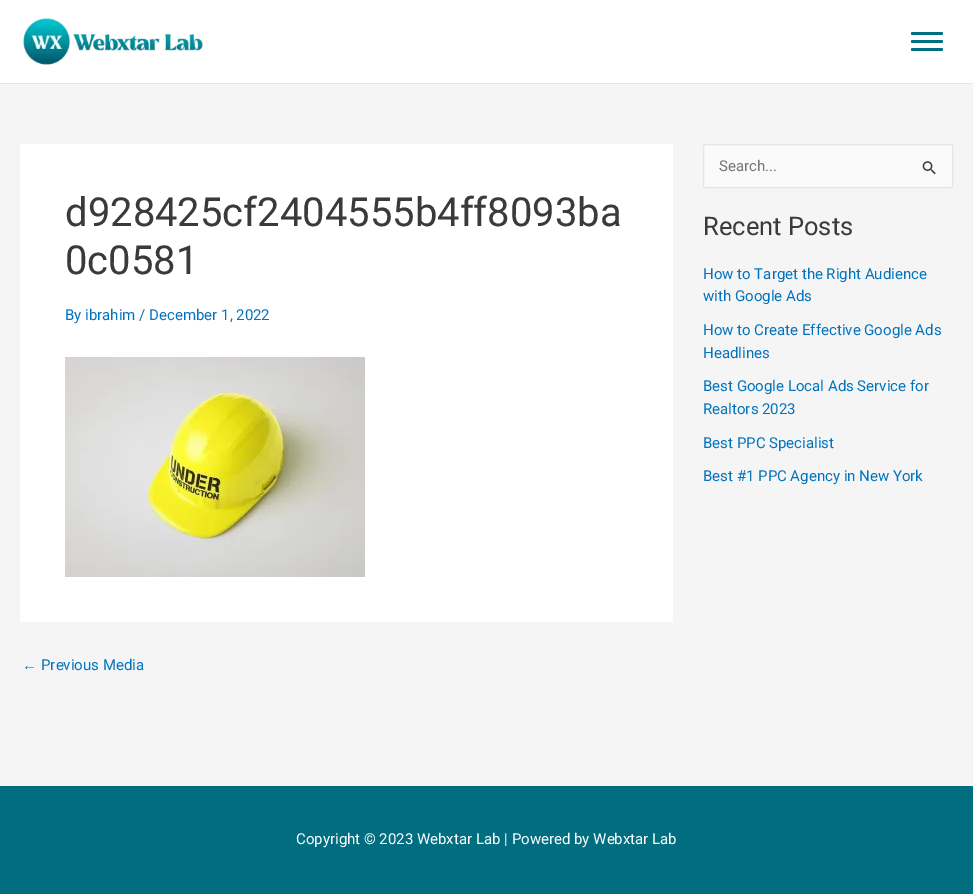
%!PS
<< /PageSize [973 894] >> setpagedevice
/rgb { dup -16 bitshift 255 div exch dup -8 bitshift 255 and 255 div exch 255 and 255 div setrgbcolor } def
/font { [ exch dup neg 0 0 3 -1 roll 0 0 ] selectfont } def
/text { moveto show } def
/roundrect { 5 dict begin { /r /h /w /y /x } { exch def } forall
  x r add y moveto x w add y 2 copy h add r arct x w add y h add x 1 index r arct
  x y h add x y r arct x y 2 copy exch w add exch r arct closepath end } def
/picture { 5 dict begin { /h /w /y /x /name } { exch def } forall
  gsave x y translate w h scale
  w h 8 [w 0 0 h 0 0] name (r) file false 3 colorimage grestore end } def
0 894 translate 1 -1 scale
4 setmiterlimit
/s1 { /Roboto-Regular 40 font 16#3A3A3A rgb } def
/s2 { /Roboto-Regular 15 font 16#0274BE rgb } def
/s3 { /LiberationSans-Regular 15 font 16#0274BE rgb } def
/s4 { /Roboto-Regular 15 font 16#757575 rgb } def
/s5 { /Roboto-Regular 25.5 font 16#3A3A3A rgb } def
/s6 { /Roboto-Regular 15 font 16#FFFFFF rgb } def
16#F5F5F5 rgb
0 0 973 894 rectfill
16#FFFFFF rgb
0 0 973 83 rectfill
16#E5E5E5 rgb
0 83 973 1 rectfill
(pic1.raw) 23 18 180 47 picture
16#006D80 rgb
911 32 32 3 1.5 roundrect fill
911 40 32 3 1.5 roundrect fill
911 48 32 3 1.5 roundrect fill
16#FFFFFF rgb
20 144 653 478 rectfill
s1
(d928425cf2404555b4ff8093ba) 65 226 text
(0c0581) 65 274 text
s2
(By ibrahim / December 1, 2022) 65 320 text
(pic2.raw) 65 357 300 220 picture
s3
(←) 22 670 text
s2
(Previous Media) 41 670 text
16#FAFAFA rgb
703.5 144.5 249 43 1.5 roundrect gsave fill grestore
16#E5E5E5 rgb
stroke
s4
(Search...) 719 171 text
(pic3.raw) 922 161 14 14 picture
s5
(Recent Posts) 703 235 text
s2
(How to Target the Right Audience) 703 279 text
(with Google Ads) 703 301 text
(How to Create Effective Google Ads) 703 335 text
(Headlines) 703 358 text
(Best Google Local Ads Service for) 703 391 text
(Realtors 2023) 703 414 text
(Best PPC Specialist) 703 448 text
(Best #1 PPC Agency in New York) 703 481 text
16#006D80 rgb
0 786 973 108 rectfill
s6
(Copyright © 2023 Webxtar Lab | Powered by Webxtar Lab) 296 844 text
showpage
